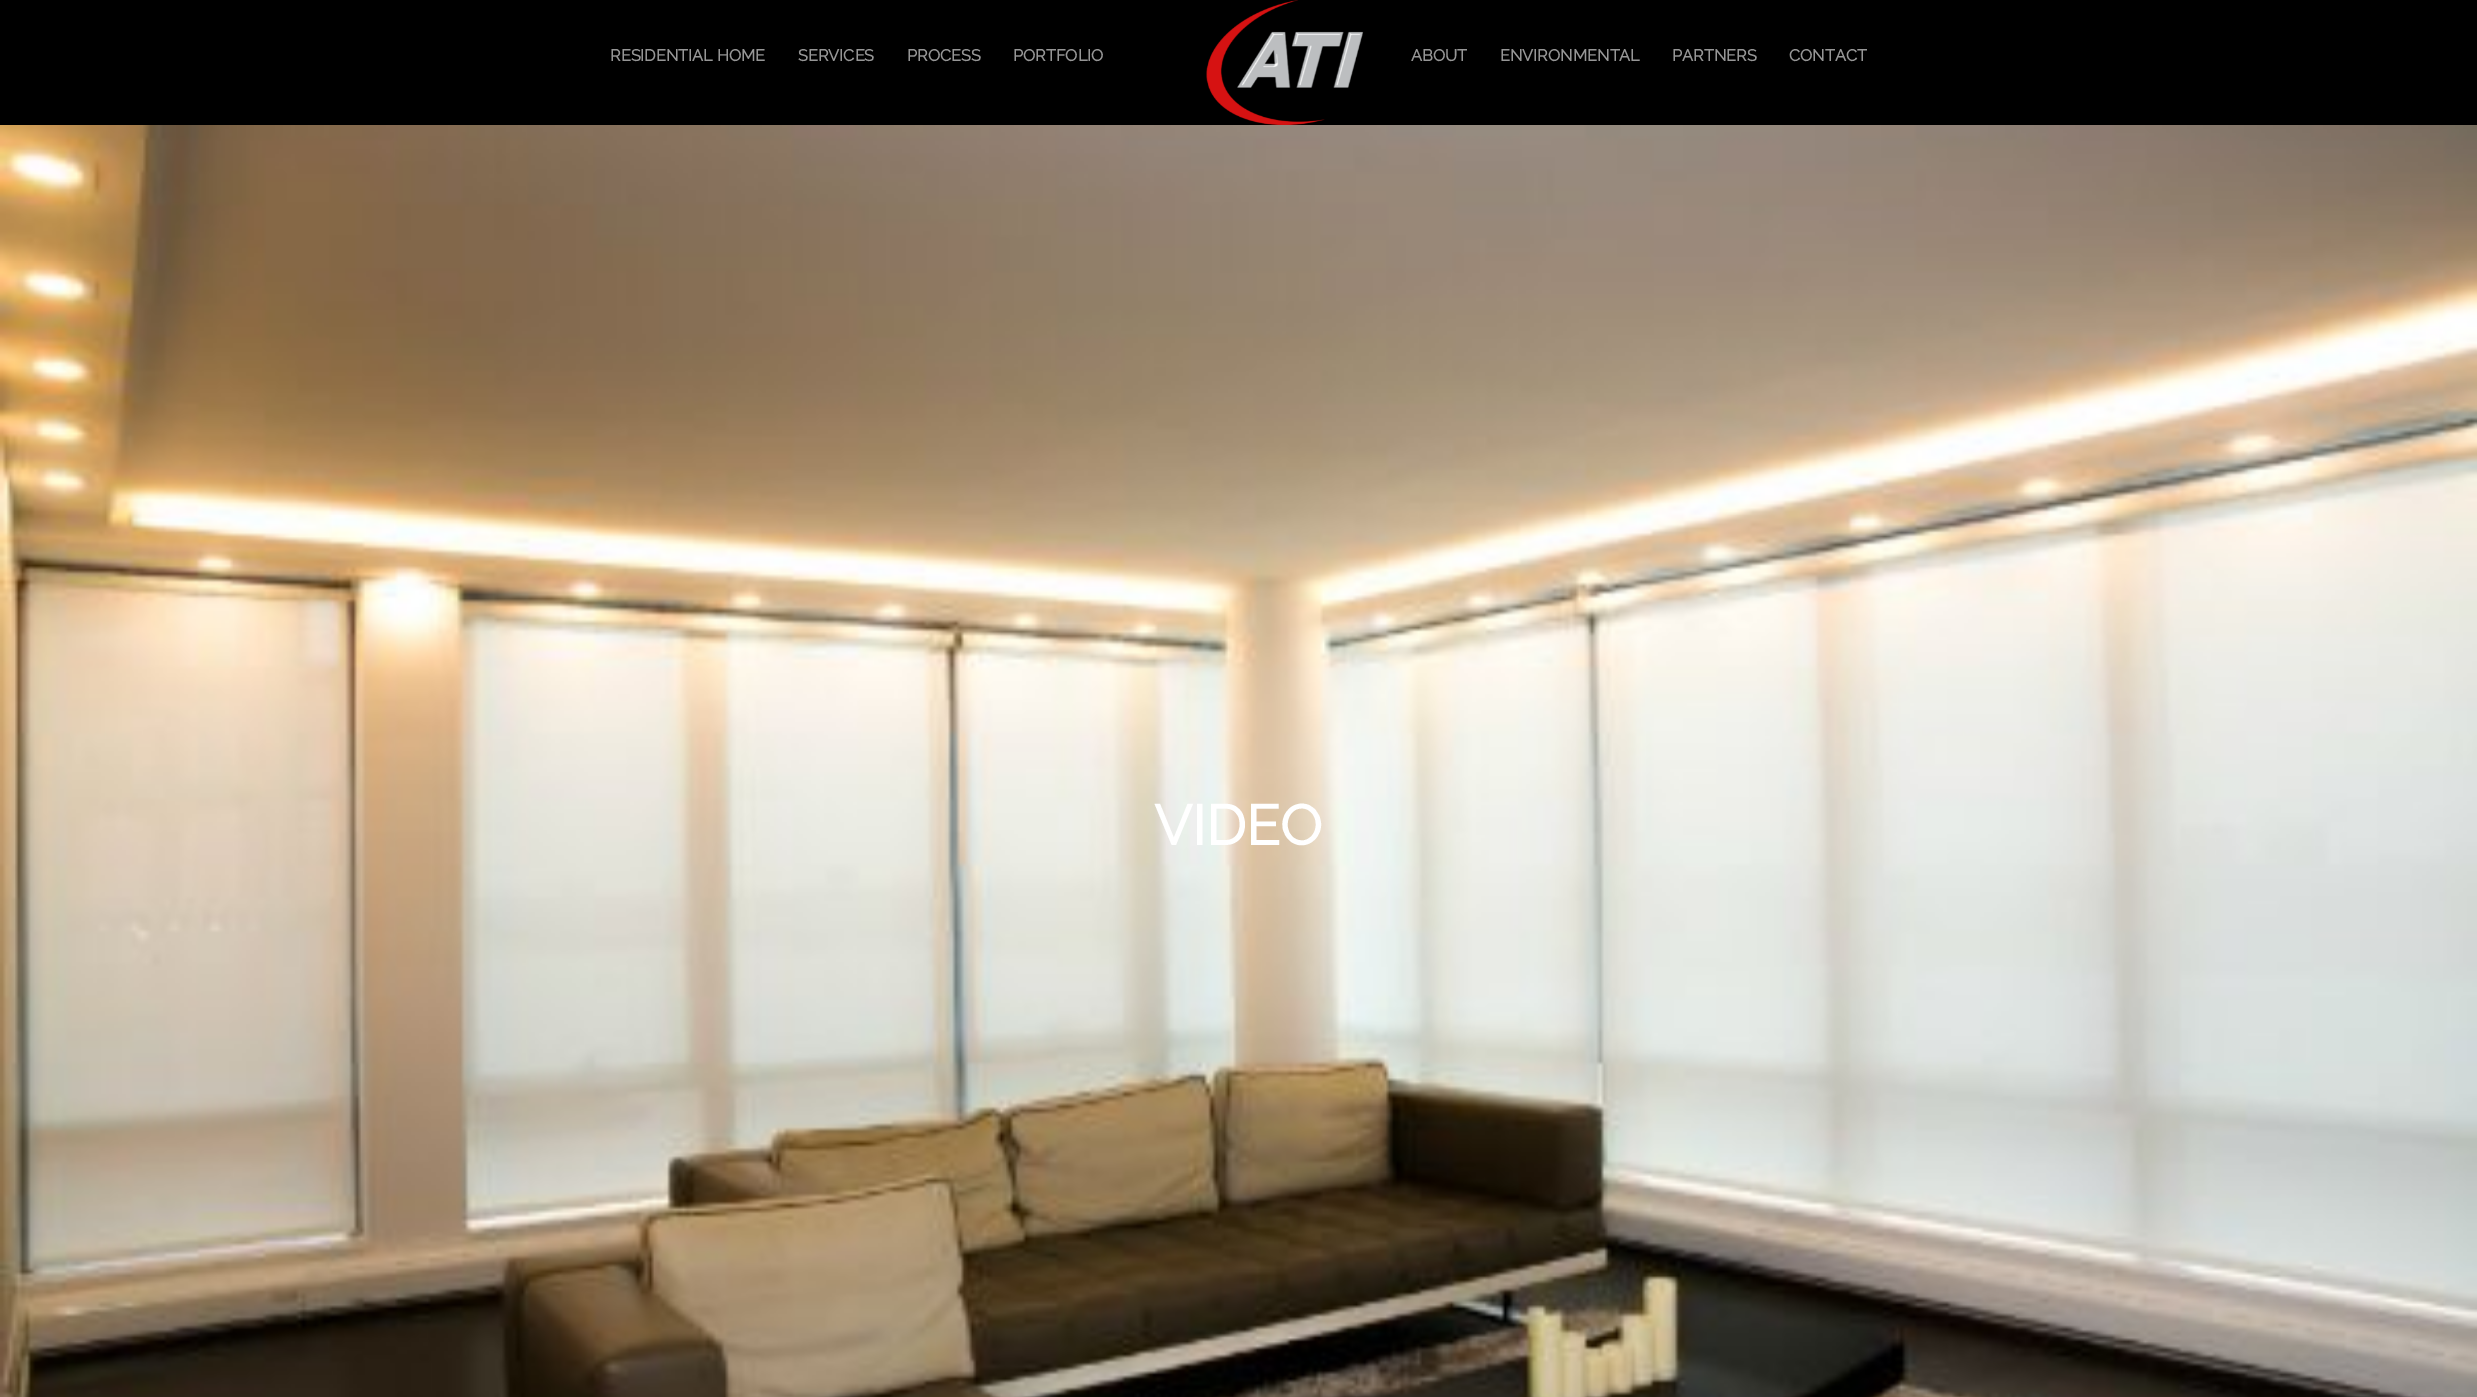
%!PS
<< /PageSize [2477 1397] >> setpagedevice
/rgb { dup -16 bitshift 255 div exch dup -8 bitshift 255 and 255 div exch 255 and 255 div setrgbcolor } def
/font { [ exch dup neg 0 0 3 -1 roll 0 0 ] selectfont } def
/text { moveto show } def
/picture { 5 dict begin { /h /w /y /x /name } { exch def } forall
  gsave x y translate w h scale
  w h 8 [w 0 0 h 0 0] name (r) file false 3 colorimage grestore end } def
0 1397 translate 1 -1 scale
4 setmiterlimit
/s1 { /Raleway-Bold 16.25 font 16#969696 rgb } def
/s2 { /Raleway-Bold 56 font 16#FFFFFF rgb } def
16#FFFFFF rgb
0 0 2477 1397 rectfill
16#000000 rgb
0 0 2477 125 rectfill
(pic1.raw) 1206 0 158 125 picture
s1
(RESIDENTIAL HOME) 610 61 text
(SERVICES) 798 61 text
(PROCESS) 907 61 text
(PORTFOLIO) 1013 61 text
(ABOUT) 1411 61 text
(ENVIRONMENTAL) 1500 61 text
(PARTNERS) 1672 61 text
(CONTACT) 1789 61 text
(pic2.raw) 0 125 2477 1272 picture
s2
(VIDEO) 1154 845 text
showpage
